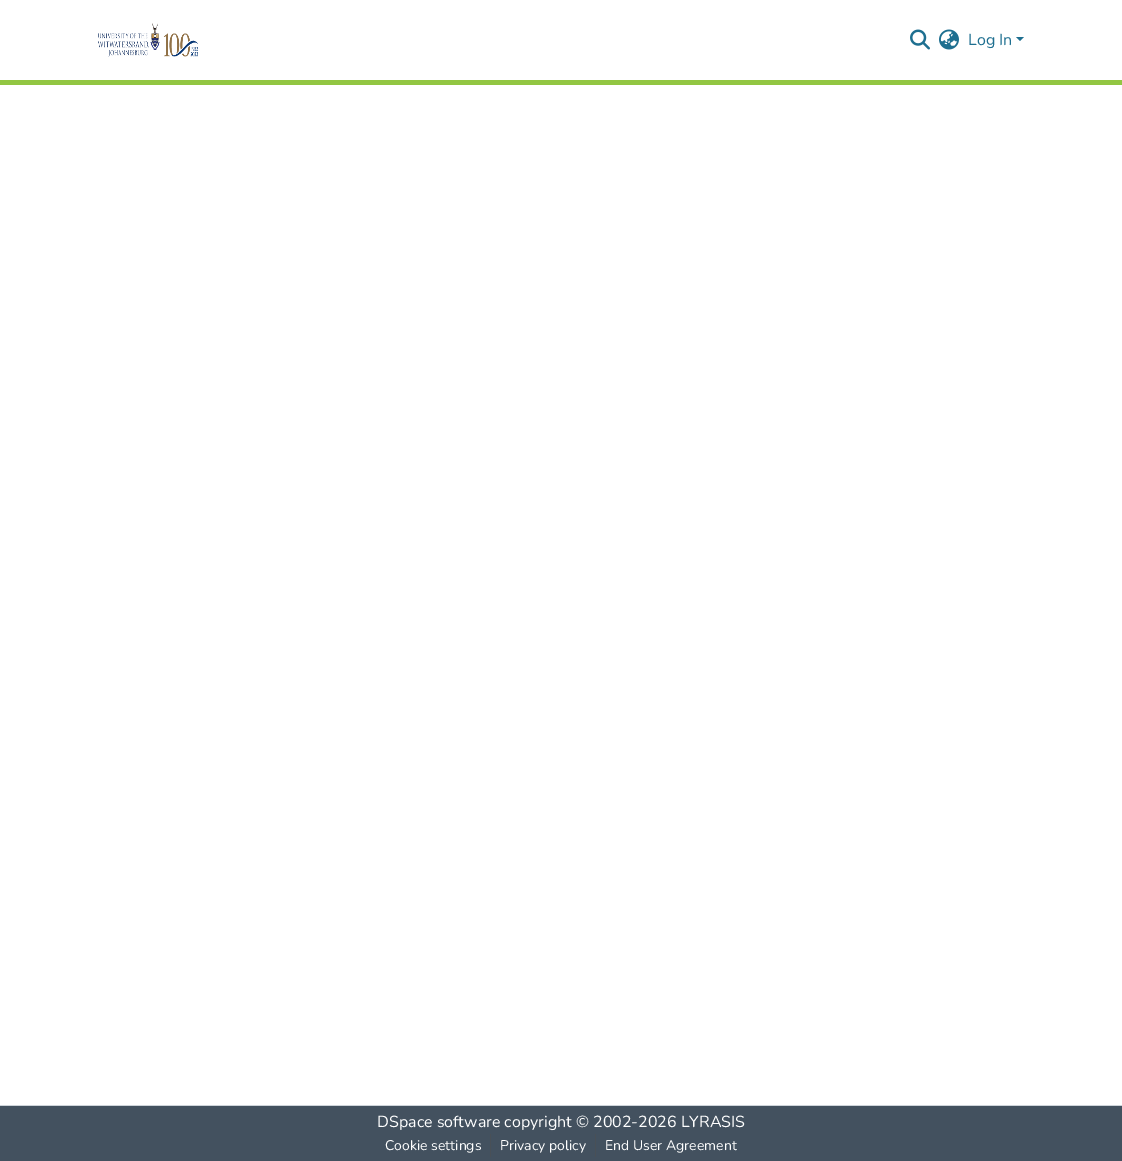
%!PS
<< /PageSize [1122 1161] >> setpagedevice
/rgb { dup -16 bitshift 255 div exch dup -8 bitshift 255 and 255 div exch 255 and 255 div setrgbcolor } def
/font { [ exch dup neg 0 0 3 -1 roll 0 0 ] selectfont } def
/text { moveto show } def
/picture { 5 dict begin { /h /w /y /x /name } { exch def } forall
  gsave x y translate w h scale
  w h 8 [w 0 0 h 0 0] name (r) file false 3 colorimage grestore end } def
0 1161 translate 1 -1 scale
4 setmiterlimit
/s1 { /Nunito-Regular 16 font 16#1E6F90 rgb } def
/s2 { /Nunito-Regular 16 font 16#FFFFFF rgb } def
/s3 { /Nunito-Regular 14 font 16#FFFFFF rgb } def
16#FFFFFF rgb
0 0 1122 1161 rectfill
16#92C642 rgb
0 80 1122 5 rectfill
(pic1.raw) 98 23 100 34 picture
(pic2.raw) 910 29 20 21 picture
(pic3.raw) 939 29 20 21 picture
s1
(Log In) 968 45 text
1016 37 moveto 1024 37 lineto 1020 41 lineto closepath fill
16#43515F rgb
0 1106 1122 55 rectfill
16#CED4DA rgb
0 1105 1122 1 rectfill
s2
(DSpace software copyright © 2002-2026 LYRASIS) 377 1127 text
s3
(Cookie settings) 385 1150 text
16#495057 rgb
490 1134 1 23 rectfill
s3
(Privacy policy) 500 1150 text
16#495057 rgb
595 1134 1 23 rectfill
s3
(End User Agreement) 605 1150 text
showpage
